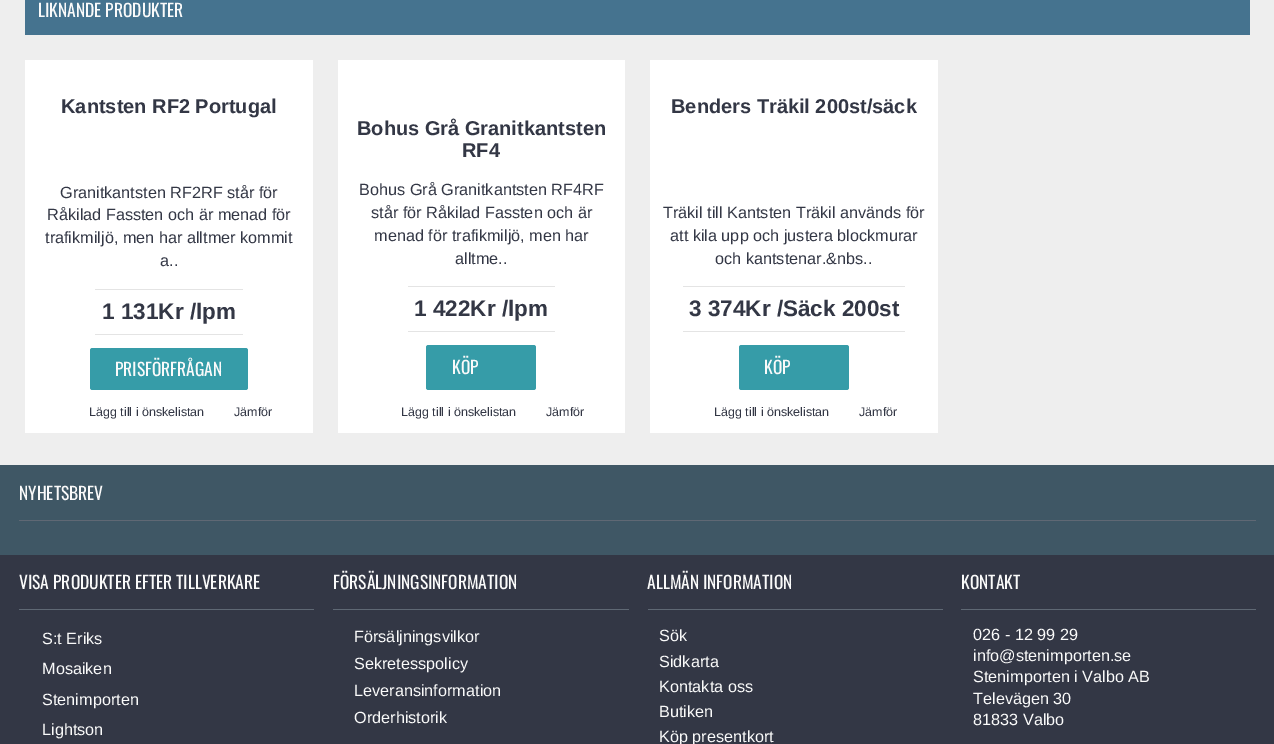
%!PS
<< /PageSize [1274 744] >> setpagedevice
/rgb { dup -16 bitshift 255 div exch dup -8 bitshift 255 and 255 div exch 255 and 255 div setrgbcolor } def
/font { [ exch dup neg 0 0 3 -1 roll 0 0 ] selectfont } def
/text { moveto show } def
/roundrect { 5 dict begin { /r /h /w /y /x } { exch def } forall
  x r add y moveto x w add y 2 copy h add r arct x w add y h add x 1 index r arct
  x y h add x y r arct x y 2 copy exch w add exch r arct closepath end } def
0 744 translate 1 -1 scale
4 setmiterlimit
/s1 { /Oswald-Regular 17.5 font 16#FAFAFA rgb } def
/s2 { /LiberationSans-Bold 20 font 16#333745 rgb } def
/s3 { /LiberationSans-Regular 16.25 font 16#333745 rgb } def
/s4 { /LiberationSans-Bold 22.5 font 16#333745 rgb } def
/s5 { /LiberationSans-Regular 12.5 font 16#333745 rgb } def
/s6 { /LiberationSans-Regular 16.25 font 16#FAFAFA rgb } def
16#EEEEEE rgb
0 0 1274 744 rectfill
16#45738F rgb
25 0 1225 35 rectfill
s1
(LIKNANDE PRODUKTER) 38 17 text
16#FFFFFF rgb
25 60 288 373 rectfill
s2
(Kantsten RF2 Portugal) 61 113 text
s3
(Granitkantsten RF2RF står för) 60 198 text
(Råkilad Fassten och är menad för) 47 220 text
(trafikmiljö, men har alltmer kommit) 45 243 text
(a..) 160 266 text
16#E4E4E4 rgb
95 289 148 1 rectfill
95 334 148 1 rectfill
s4
(1 131Kr /lpm) 102 319 text
16#369CA8 rgb
90 348 158 42 2.5 roundrect fill
s1
(PRISFÖRFRÅGAN) 115 376 text
s5
(Lägg till i önskelistan) 89 416 text
(Jämför) 234 416 text
16#FFFFFF rgb
338 60 287 373 rectfill
s2
(Bohus Grå Granitkantsten) 357 135 text
(RF4) 462 157 text
s3
(Bohus Grå Granitkantsten RF4RF) 359 195 text
(står för Råkilad Fassten och är) 371 218 text
(menad för trafikmiljö, men har) 374 241 text
(alltme..) 455 264 text
16#E4E4E4 rgb
408 286 147 1 rectfill
408 331 147 1 rectfill
s4
(1 422Kr /lpm) 414 316 text
16#369CA8 rgb
426 345 110 45 2.5 roundrect fill
s1
(KÖP) 452 374 text
s5
(Lägg till i önskelistan) 401 416 text
(Jämför) 546 416 text
16#FFFFFF rgb
650 60 288 373 rectfill
s2
(Benders Träkil 200st/säck) 671 113 text
s3
(Träkil till Kantsten Träkil används för) 663 218 text
(att kila upp och justera blockmurar) 670 241 text
(och kantstenar.&nbs..) 715 264 text
16#E4E4E4 rgb
683 286 222 1 rectfill
683 331 222 1 rectfill
s4
(3 374Kr /Säck 200st) 689 316 text
16#369CA8 rgb
739 345 110 45 2.5 roundrect fill
s1
(KÖP) 764 374 text
s5
(Lägg till i önskelistan) 714 416 text
(Jämför) 859 416 text
0 555 1274 189 rectfill
16#3F5765 rgb
0 465 1274 90 rectfill
16#5F6874 rgb
19 520 1237 1 rectfill
s1
(NYHETSBREV) 19 500 text
16#5F6874 rgb
19 609 295 1 rectfill
s1
(VISA PRODUKTER EFTER TILLVERKARE) 19 589 text
s6
(S:t Eriks) 42 644 text
(Mosaiken) 42 674 text
(Stenimporten) 42 705 text
(Lightson) 42 735 text
16#5F6874 rgb
333 609 296 1 rectfill
s1
(FÖRSÄLJNINGSINFORMATION) 333 589 text
s6
(Försäljningsvilkor) 354 642 text
(Sekretesspolicy) 354 669 text
(Leveransinformation) 354 696 text
(Orderhistorik) 354 723 text
16#5F6874 rgb
648 609 295 1 rectfill
s1
(ALLMÄN INFORMATION) 647 589 text
s6
(Sök) 659 641 text
(Sidkarta) 659 667 text
(Kontakta oss) 659 692 text
(Butiken) 659 717 text
(Köp presentkort) 659 742 text
16#5F6874 rgb
961 609 295 1 rectfill
s1
(KONTAKT) 961 589 text
s6
(026 - 12 99 29) 973 640 text
(info@stenimporten.se) 973 661 text
(Stenimporten i Valbo AB) 973 682 text
(Televägen 30) 973 704 text
(81833 Valbo) 973 725 text
showpage
